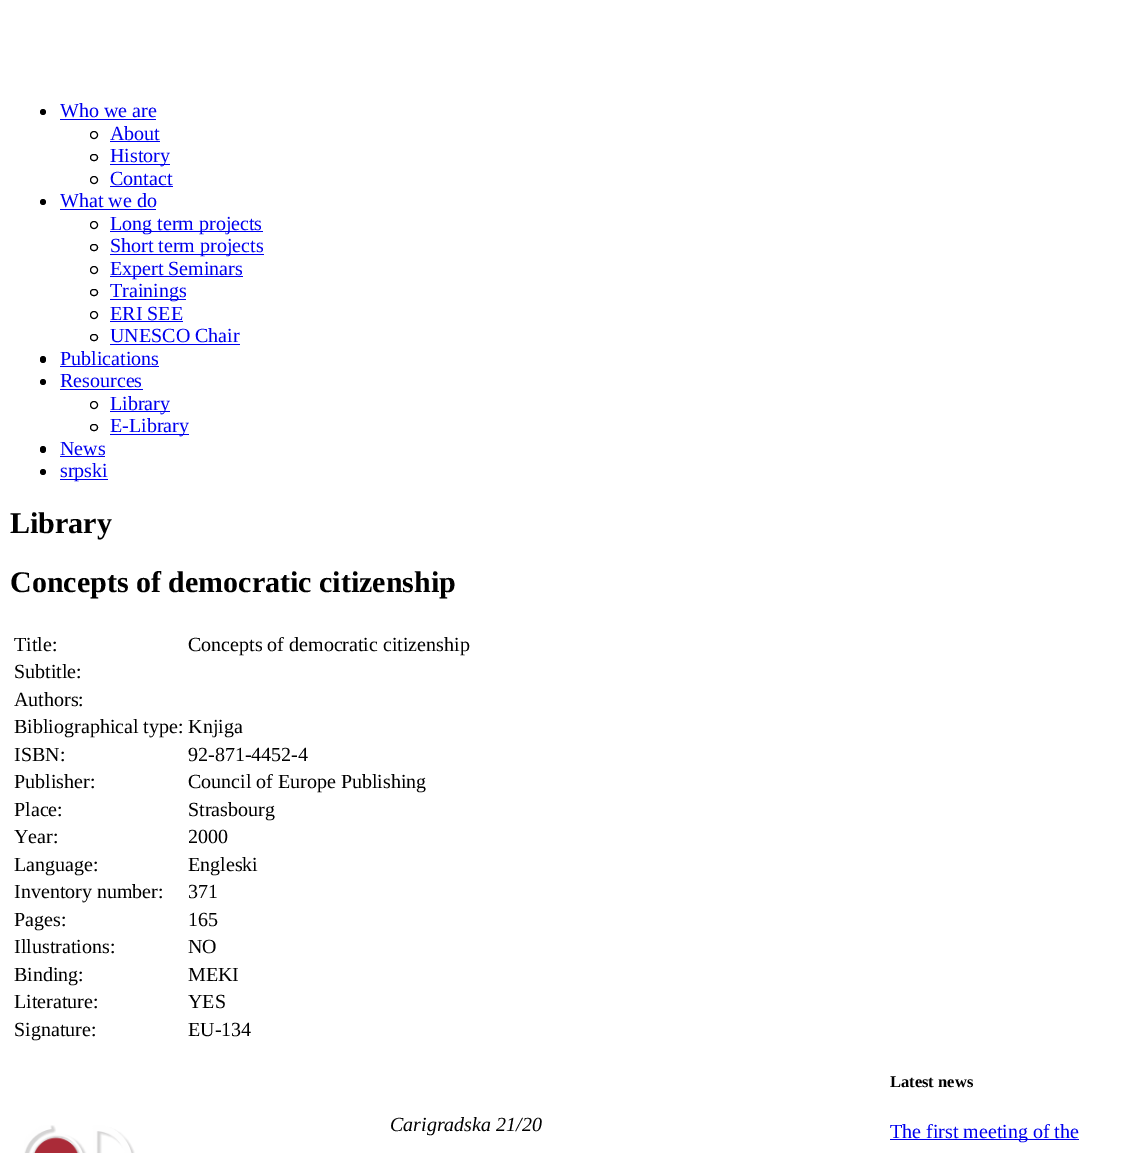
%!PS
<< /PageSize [1148 1153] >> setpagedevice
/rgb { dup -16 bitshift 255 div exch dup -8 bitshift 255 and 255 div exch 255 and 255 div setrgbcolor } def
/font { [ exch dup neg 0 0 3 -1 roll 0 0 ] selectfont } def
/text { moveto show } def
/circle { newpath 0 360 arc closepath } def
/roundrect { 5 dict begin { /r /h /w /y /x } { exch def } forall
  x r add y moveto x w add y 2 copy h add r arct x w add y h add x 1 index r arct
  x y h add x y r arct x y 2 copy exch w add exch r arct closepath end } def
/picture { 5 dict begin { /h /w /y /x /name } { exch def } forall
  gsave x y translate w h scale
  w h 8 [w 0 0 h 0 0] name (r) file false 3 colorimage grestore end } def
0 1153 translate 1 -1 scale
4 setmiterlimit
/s1 { /LiberationSerif-Regular 20 font 16#0000EE rgb } def
/s2 { /LiberationSerif-Bold 30 font 16#000000 rgb } def
/s3 { /LiberationSerif-Regular 20 font 16#000000 rgb } def
/s4 { /LiberationSerif-Italic 20 font 16#000000 rgb } def
/s5 { /LiberationSerif-Bold 16.5 font 16#000000 rgb } def
16#FFFFFF rgb
0 0 1148 1153 rectfill
16#000000 rgb
43 112 3 circle fill
s1
(Who we are) 60 117 text
60 119 96 1 rectfill
16#000000 rgb
94 135 3.5 circle stroke
s1
(About) 110 140 text
110 141 50 1 rectfill
16#000000 rgb
90.5 154.5 7 6 3 roundrect stroke
16#0000EE rgb
110 164 60 1 rectfill
(History) 110 162 text
16#000000 rgb
94 180 3.5 circle stroke
s1
(Contact) 110 185 text
110 186 63 1 rectfill
16#000000 rgb
43 202 3 circle fill
s1
(What we do) 60 207 text
60 209 96 1 rectfill
16#000000 rgb
94 225 3.5 circle stroke
16#0000EE rgb
110 231 153 1 rectfill
(Long term projects) 110 230 text
16#000000 rgb
90.5 244.5 7 6 3 roundrect stroke
16#0000EE rgb
110 254 154 1 rectfill
(Short term projects) 110 252 text
16#000000 rgb
94 270 3.5 circle stroke
16#0000EE rgb
110 276 133 1 rectfill
(Expert Seminars) 110 275 text
16#000000 rgb
90.5 289.5 7 6 3 roundrect stroke
16#0000EE rgb
110 299 76 1 rectfill
(Trainings) 110 297 text
16#000000 rgb
94 315 3.5 circle stroke
s1
(ERI SEE) 110 320 text
110 321 73 1 rectfill
16#000000 rgb
90.5 334.5 7 6 3 roundrect stroke
s1
(UNESCO Chair) 110 342 text
110 344 130 1 rectfill
16#000000 rgb
40 356 6 7 3 roundrect fill
s1
(Publications) 60 365 text
60 366 99 1 rectfill
16#000000 rgb
43 382 3 circle fill
s1
(Resources) 60 387 text
60 389 83 1 rectfill
16#000000 rgb
94 405 3.5 circle stroke
16#0000EE rgb
110 411 60 1 rectfill
(Library) 110 410 text
16#000000 rgb
90.5 424.5 7 6 3 roundrect stroke
16#0000EE rgb
110 434 79 1 rectfill
(E-Library) 110 432 text
16#000000 rgb
40 446 6 7 3 roundrect fill
s1
(News) 60 455 text
60 456 45 1 rectfill
16#000000 rgb
43 472 3 circle fill
16#0000EE rgb
60 479 48 1 rectfill
(srpski) 60 477 text
s2
(Library) 10 533 text
(Concepts of democratic citizenship) 10 592 text
s3
(Title:) 14 651 text
(Concepts of democratic citizenship) 188 651 text
(Subtitle:) 14 678 text
(Authors:) 14 706 text
(Bibliographical type: Knjiga) 14 733 text
(ISBN:) 14 761 text
(92-871-4452-4) 188 761 text
(Publisher:) 14 788 text
(Council of Europe Publishing) 188 788 text
(Place:) 14 816 text
(Strasbourg) 188 816 text
(Year:) 14 843 text
(2000) 188 843 text
(Language:) 14 871 text
(Engleski) 188 871 text
(Inventory number:) 14 898 text
(371) 188 898 text
(Pages:) 14 926 text
(165) 188 926 text
(Illustrations:) 14 953 text
(NO) 188 953 text
(Binding:) 14 981 text
(MEKI) 188 981 text
(Literature:) 14 1008 text
(YES) 188 1008 text
(Signature:) 14 1036 text
(EU-134) 188 1036 text
(pic1.raw) 24 1125 111 28 picture
s4
(Carigradska 21/20) 390 1131 text
s5
(Latest news) 890 1087 text
16#0000EE rgb
890 1139 189 1 rectfill
s1
(The first meeting of the) 890 1138 text
showpage
